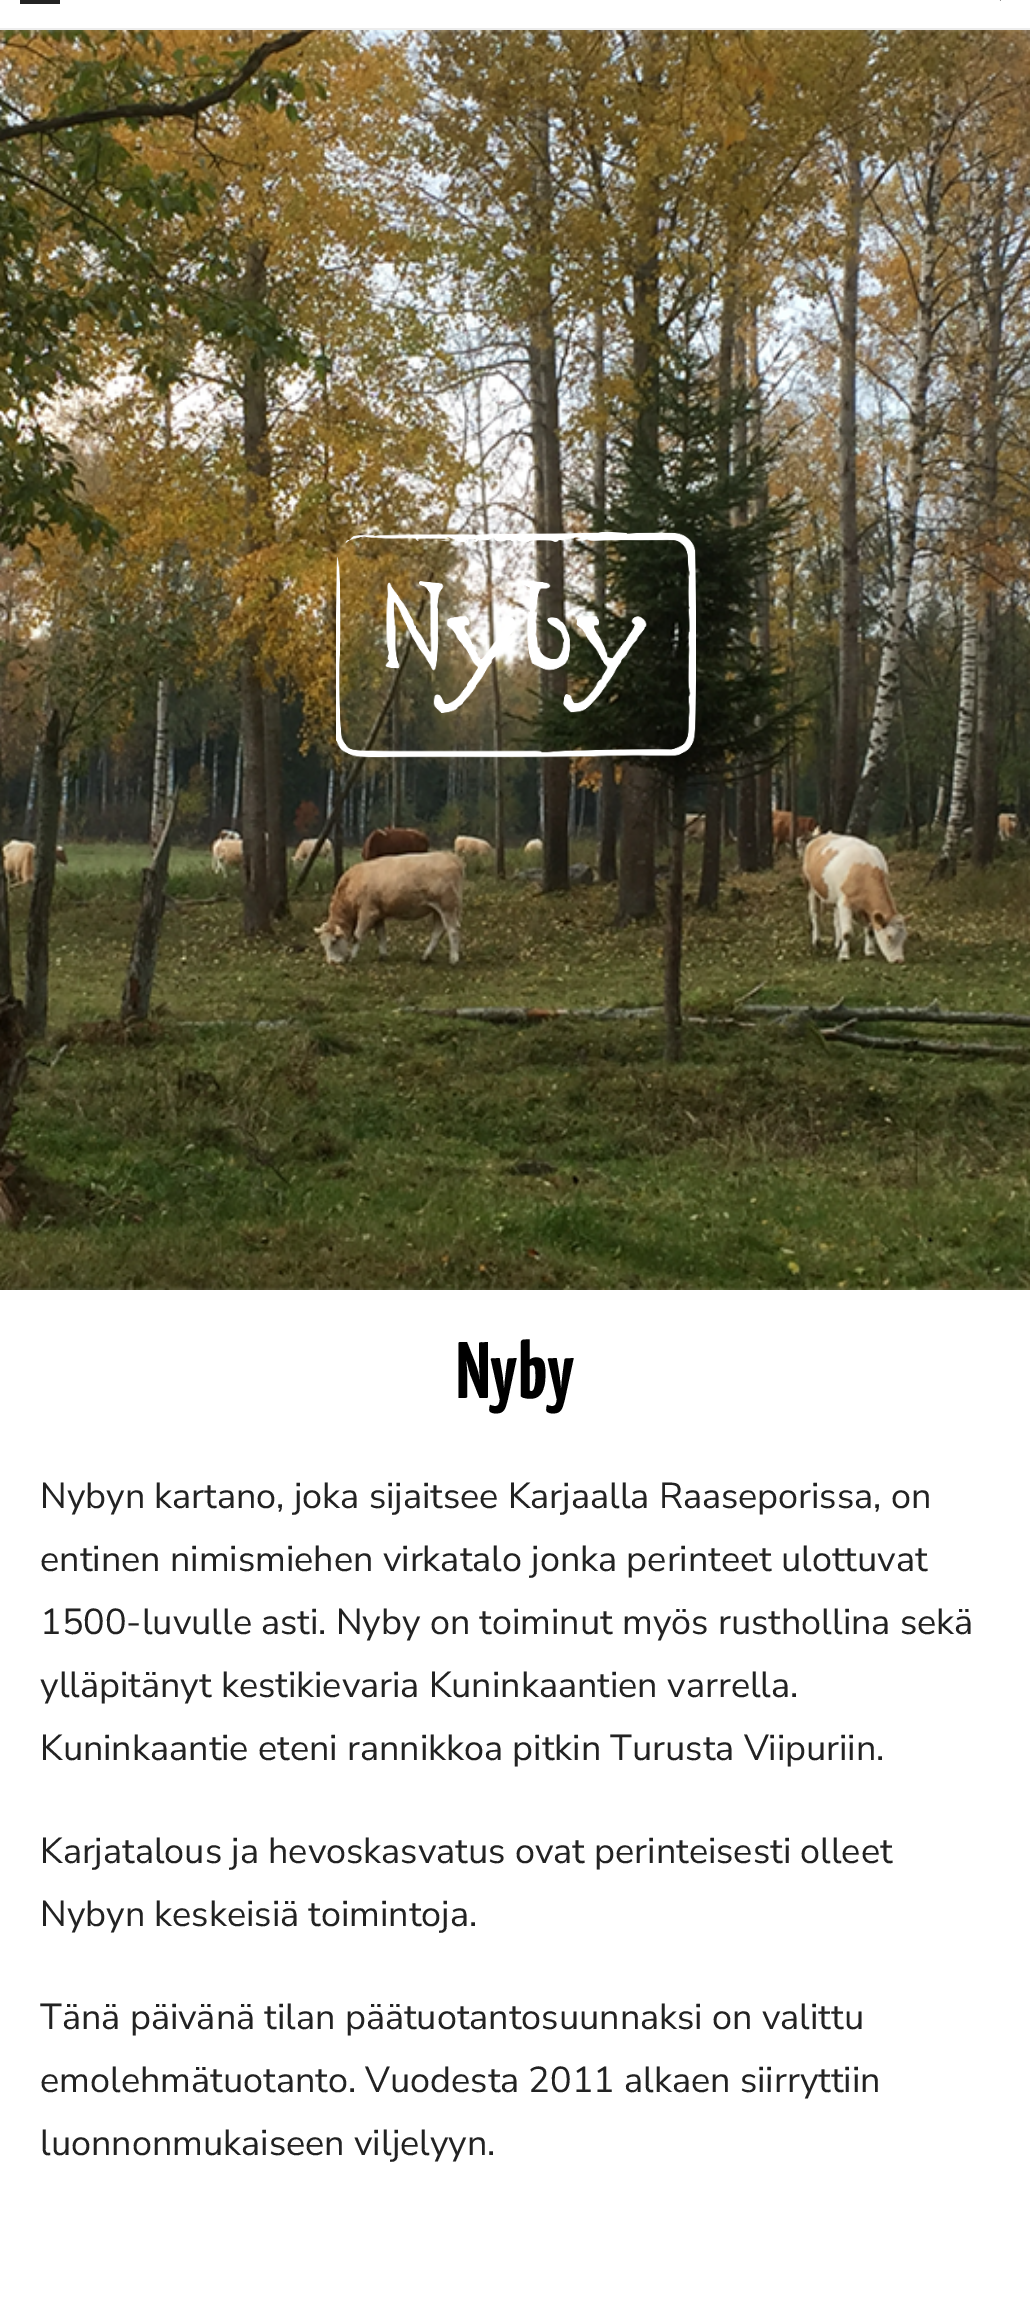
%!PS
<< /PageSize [1030 2300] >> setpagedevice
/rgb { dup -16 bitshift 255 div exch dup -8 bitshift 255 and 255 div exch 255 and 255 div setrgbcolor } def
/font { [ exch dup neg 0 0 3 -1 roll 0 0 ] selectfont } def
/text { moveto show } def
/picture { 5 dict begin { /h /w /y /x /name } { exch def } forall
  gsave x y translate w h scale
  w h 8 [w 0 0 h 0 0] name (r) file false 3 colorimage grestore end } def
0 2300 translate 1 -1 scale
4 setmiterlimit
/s1 { /YanoneKaffeesatz-Bold 80 font 16#000000 rgb } def
/s2 { /NunitoSans-Regular 36 font 16#222222 rgb } def
16#FFFFFF rgb
0 0 1030 2300 rectfill
16#EDEDED rgb
0 28 1030 2 rectfill
16#222222 rgb
20 0 40 4 rectfill
(pic1.raw) 999 0 2 1 picture
(pic2.raw) 0 30 1030 1260 picture
(pic3.raw) 336 532 360 226 picture
s1
(Nyby) 456 1398 text
s2
(Nybyn kartano, joka sijaitsee Karjaalla Raaseporissa, on) 40 1508 text
(entinen nimismiehen virkatalo jonka perinteet ulottuvat) 40 1571 text
(1500-luvulle asti. Nyby on toiminut myös rusthollina sekä) 40 1634 text
(ylläpitänyt kestikievaria Kuninkaantien varrella.) 40 1697 text
(Kuninkaantie eteni rannikkoa pitkin Turusta Viipuriin.) 40 1760 text
(Karjatalous ja hevoskasvatus ovat perinteisesti olleet) 40 1863 text
(Nybyn keskeisiä toimintoja.) 40 1926 text
(Tänä päivänä tilan päätuotantosuunnaksi on valittu) 40 2029 text
(emolehmätuotanto. Vuodesta 2011 alkaen siirryttiin) 40 2092 text
(luonnonmukaiseen viljelyyn.) 40 2155 text
showpage
